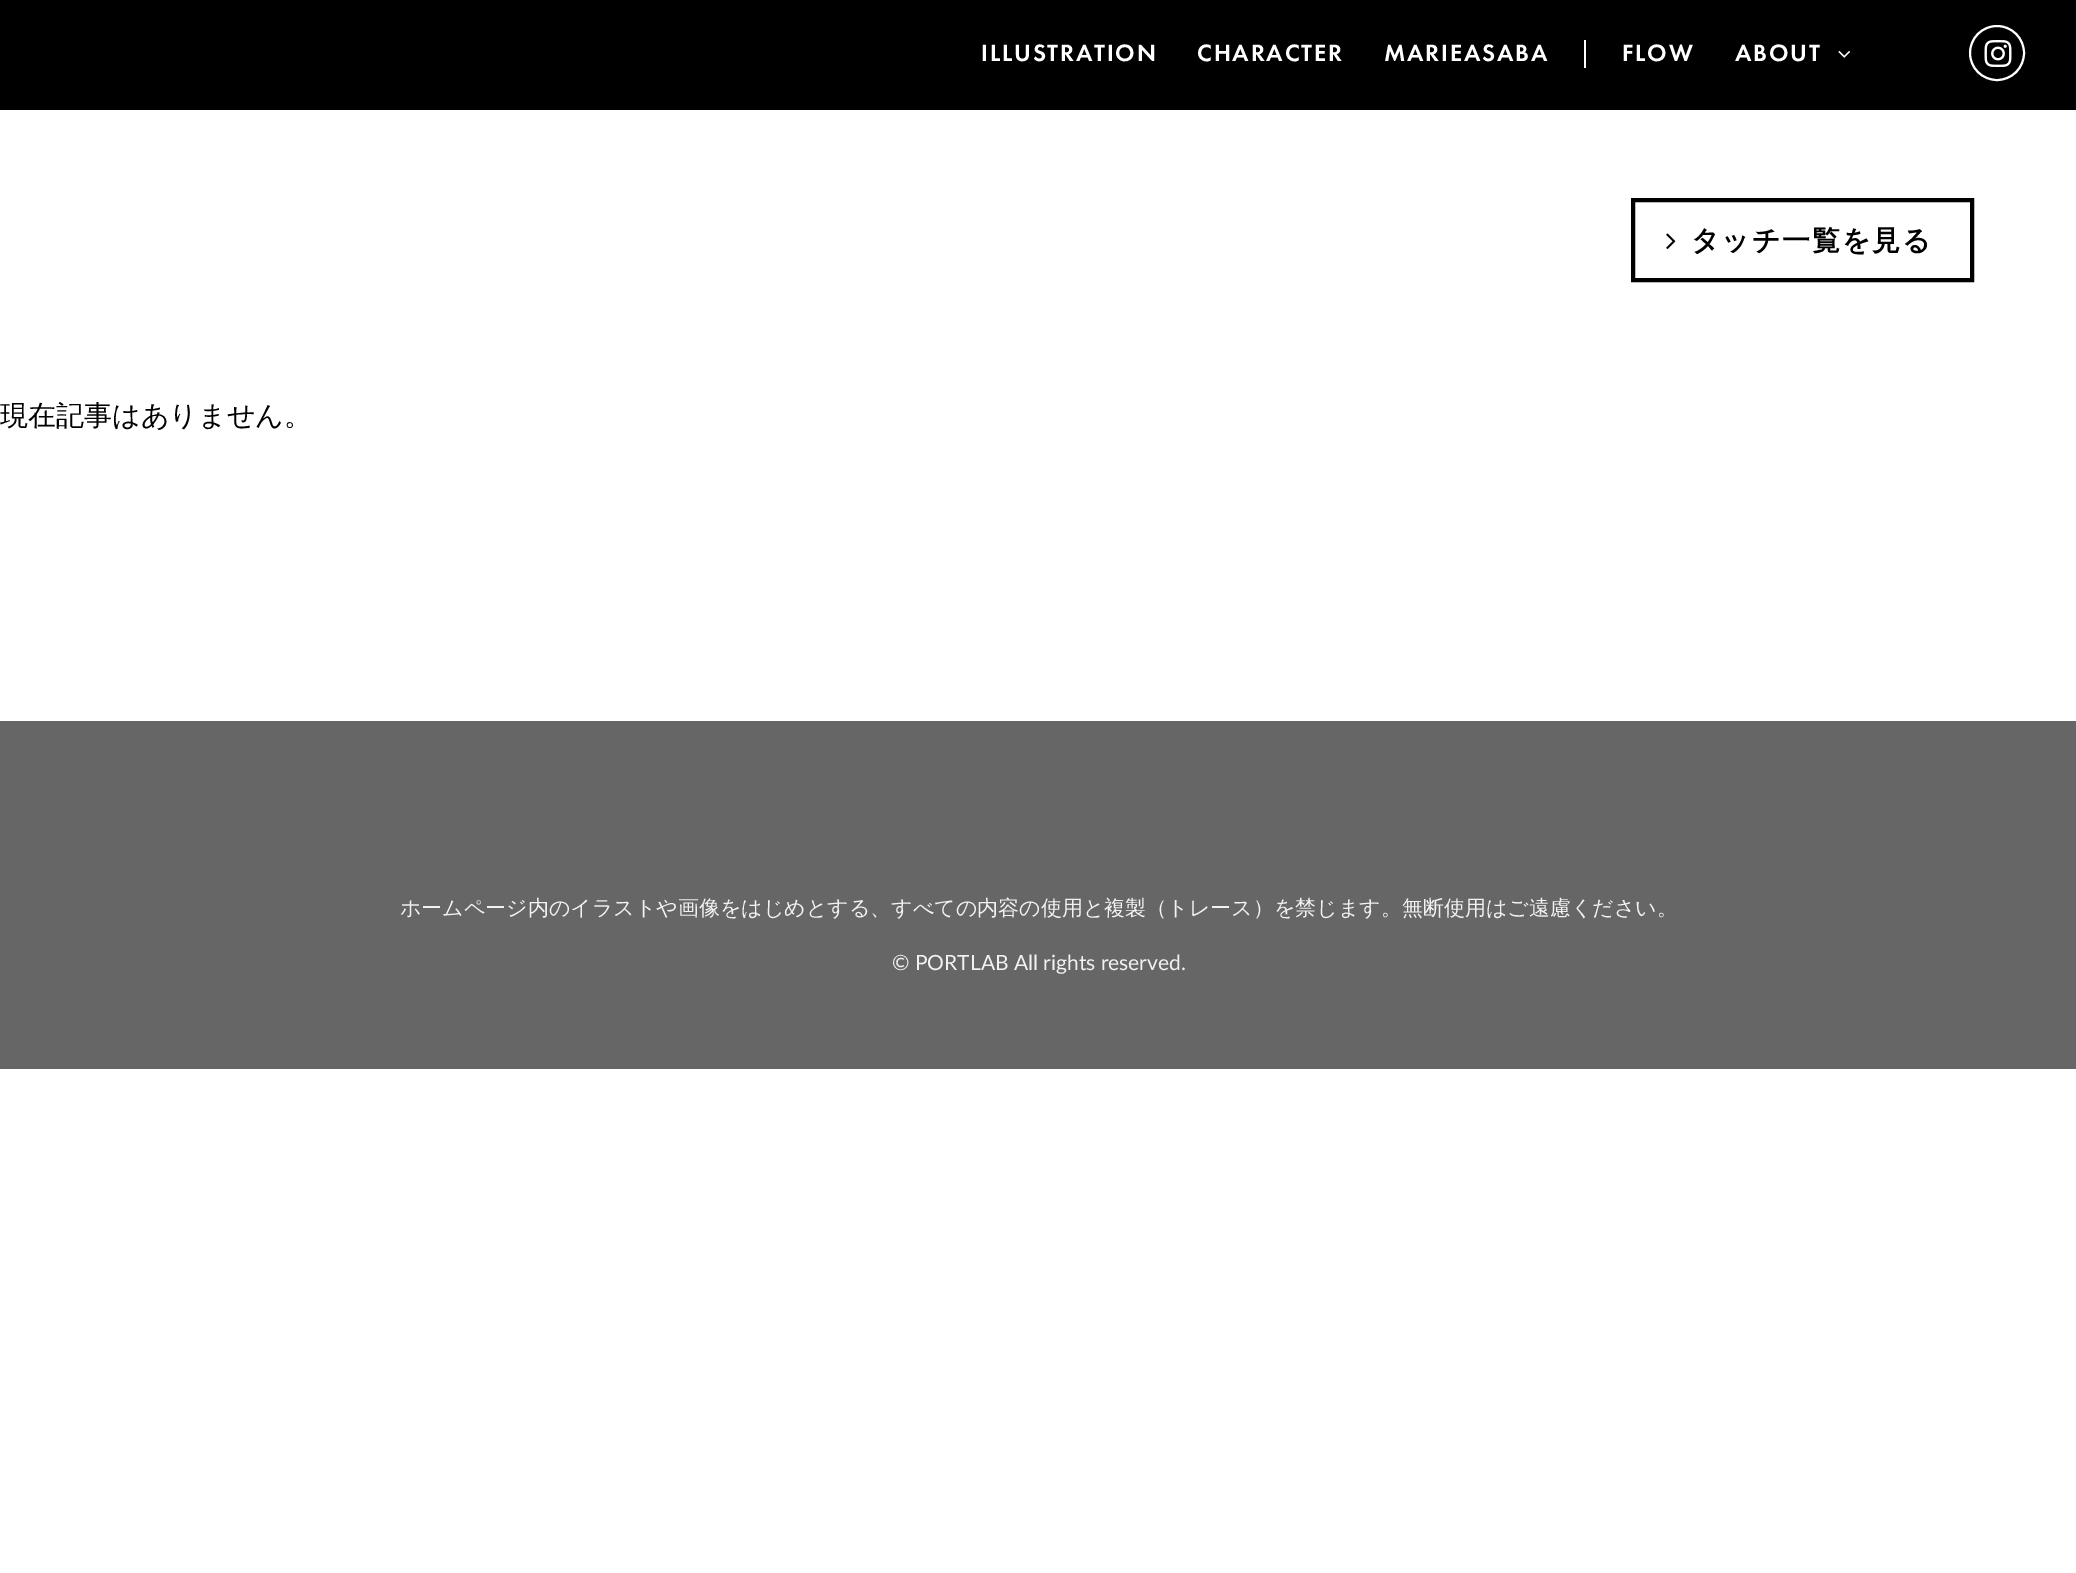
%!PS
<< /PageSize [2076 1573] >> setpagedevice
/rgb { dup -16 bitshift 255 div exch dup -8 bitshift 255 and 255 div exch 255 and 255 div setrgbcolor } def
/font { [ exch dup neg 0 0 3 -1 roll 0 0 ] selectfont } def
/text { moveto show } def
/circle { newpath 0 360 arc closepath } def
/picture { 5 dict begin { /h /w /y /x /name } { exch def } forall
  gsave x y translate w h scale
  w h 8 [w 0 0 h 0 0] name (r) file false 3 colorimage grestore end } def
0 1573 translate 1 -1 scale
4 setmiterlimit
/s1 { /WenQuanYiZenHei-Medium 28 font 16#000000 rgb } def
/s2 { /WenQuanYiZenHei-Medium 21 font 16#F2F2F2 rgb } def
/s3 { /Lato-Regular 21 font 16#F2F2F2 rgb } def
16#FFFFFF rgb
0 0 2076 1573 rectfill
16#000000 rgb
0 0 2076 110 rectfill
/FuturaPT-Medium 24.5 font
16#FFFFFF rgb
981 61 moveto 1.75 0 (ILLUSTRATION) ashow
1197 61 moveto 1.75 0 (CHARACTER) ashow
1384 61 moveto 1.75 0 (MARIEASABA) ashow
1622 61 moveto 1.75 0 (FLOW) ashow
1584 40 2 28 rectfill
1735 61 moveto 1.75 0 (ABOUT) ashow
(pic1.raw) 1838 51 12 7 picture
2 setlinewidth
1997 53 27 circle stroke
(pic2.raw) 1984 40 28 27 picture
16#000000 rgb
4 setlinewidth
1633 200 339 80 rectstroke
(pic3.raw) 1666 233 10 16 picture
/WenQuanYiZenHei-Bold 28 font
1691 250 moveto 1.75 0 (タッチ一覧を見る) ashow
s1
(現在記事はありません。) 0 425 text
16#666666 rgb
0 721 2076 348 rectfill
s2
(ホームページ内のイラストや画像をはじめとする、すべての内容の使用と複製（トレース）を禁じます。無断使用はご遠慮ください。) 400 915 text
s3
(© PORTLAB All rights reserved.) 892 970 text
showpage
